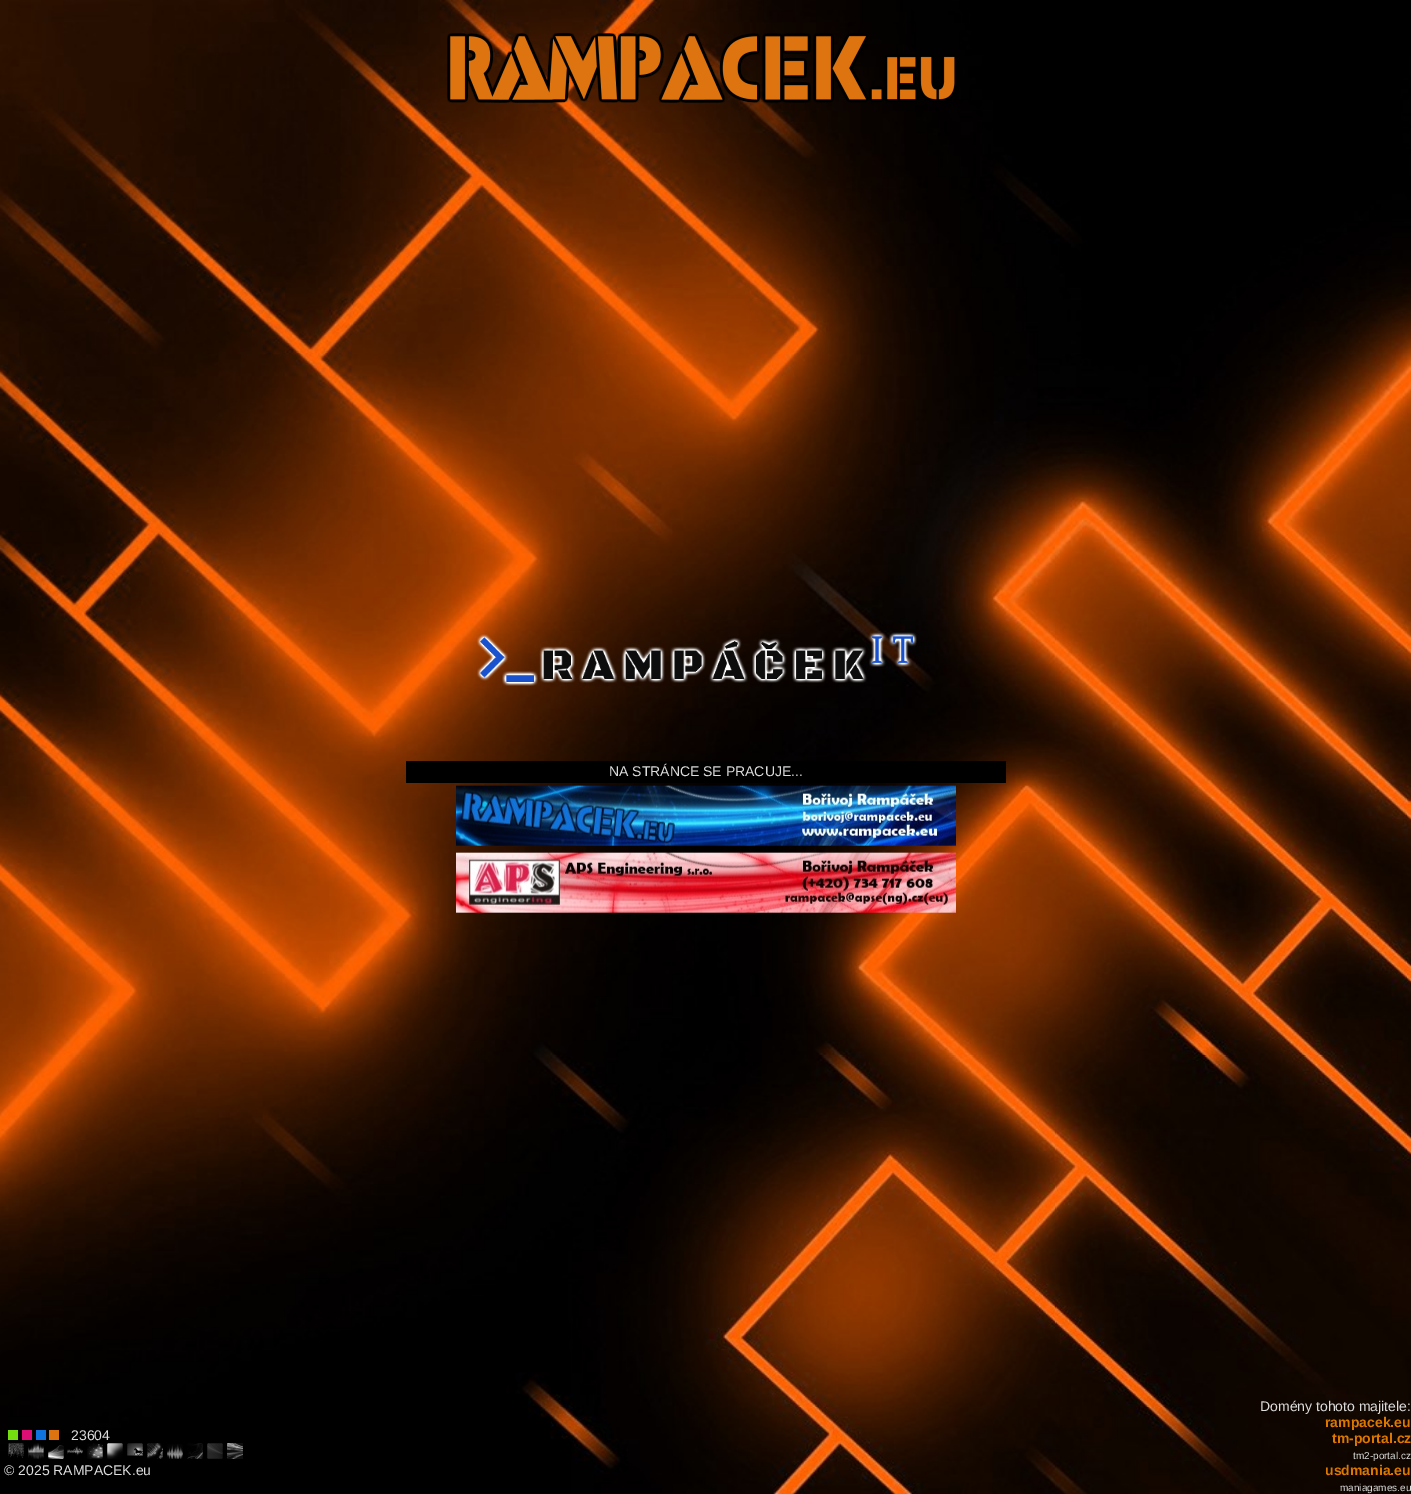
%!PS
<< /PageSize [1411 1494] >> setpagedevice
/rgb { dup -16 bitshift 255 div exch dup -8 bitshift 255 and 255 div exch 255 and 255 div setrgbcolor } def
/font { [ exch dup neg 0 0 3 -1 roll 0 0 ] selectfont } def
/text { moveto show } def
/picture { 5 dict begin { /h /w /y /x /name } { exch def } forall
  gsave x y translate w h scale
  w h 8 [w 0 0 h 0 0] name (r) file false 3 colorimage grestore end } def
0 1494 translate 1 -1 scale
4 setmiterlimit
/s1 { /LiberationSans-Regular 14 font 16#DDDDDD rgb } def
/s2 { /LiberationSans-Bold 14 font 16#DD7700 rgb } def
/s3 { /LiberationSans-Regular 10 font 16#DDDDDD rgb } def
16#FFFFFF rgb
0 0 1411 1494 rectfill
(pic1.raw) 0 0 1411 1494 picture
(pic2.raw) 447 33 508 70 picture
(pic3.raw) 477 632 440 54 picture
16#000000 rgb
406 761 600 22 rectfill
s1
(NA STRÁNCE SE PRACUJE...) 609 776 text
(pic4.raw) 456 785 500 61 picture
(pic5.raw) 456 852 500 61 picture
16#74DD0F rgb
8 1430 10 10 rectfill
16#DD0F74 rgb
22 1430 10 10 rectfill
16#0F74DD rgb
36 1430 10 10 rectfill
16#DD740F rgb
49 1430 10 10 rectfill
s1
(23604) 71 1440 text
(pic6.raw) 8 1443 16 15 picture
(pic7.raw) 28 1443 16 16 picture
(pic8.raw) 48 1445 16 14 picture
(pic9.raw) 67 1446 16 10 picture
(pic10.raw) 87 1443 16 16 picture
(pic11.raw) 107 1443 16 16 picture
(pic12.raw) 127 1443 16 13 picture
(pic13.raw) 147 1443 16 16 picture
(pic14.raw) 167 1444 16 15 picture
(pic15.raw) 187 1443 16 16 picture
(pic16.raw) 207 1443 16 16 picture
(pic17.raw) 227 1443 16 16 picture
(© 2025 RAMPACEK.eu) 4 1475 text
(Domény tohoto majitele:) 1260 1411 text
s2
(rampacek.eu) 1325 1427 text
(tm-portal.cz) 1332 1443 text
s3
(tm2-portal.cz) 1353 1459 text
s2
(usdmania.eu) 1325 1475 text
s3
(maniagames.eu) 1340 1491 text
showpage
